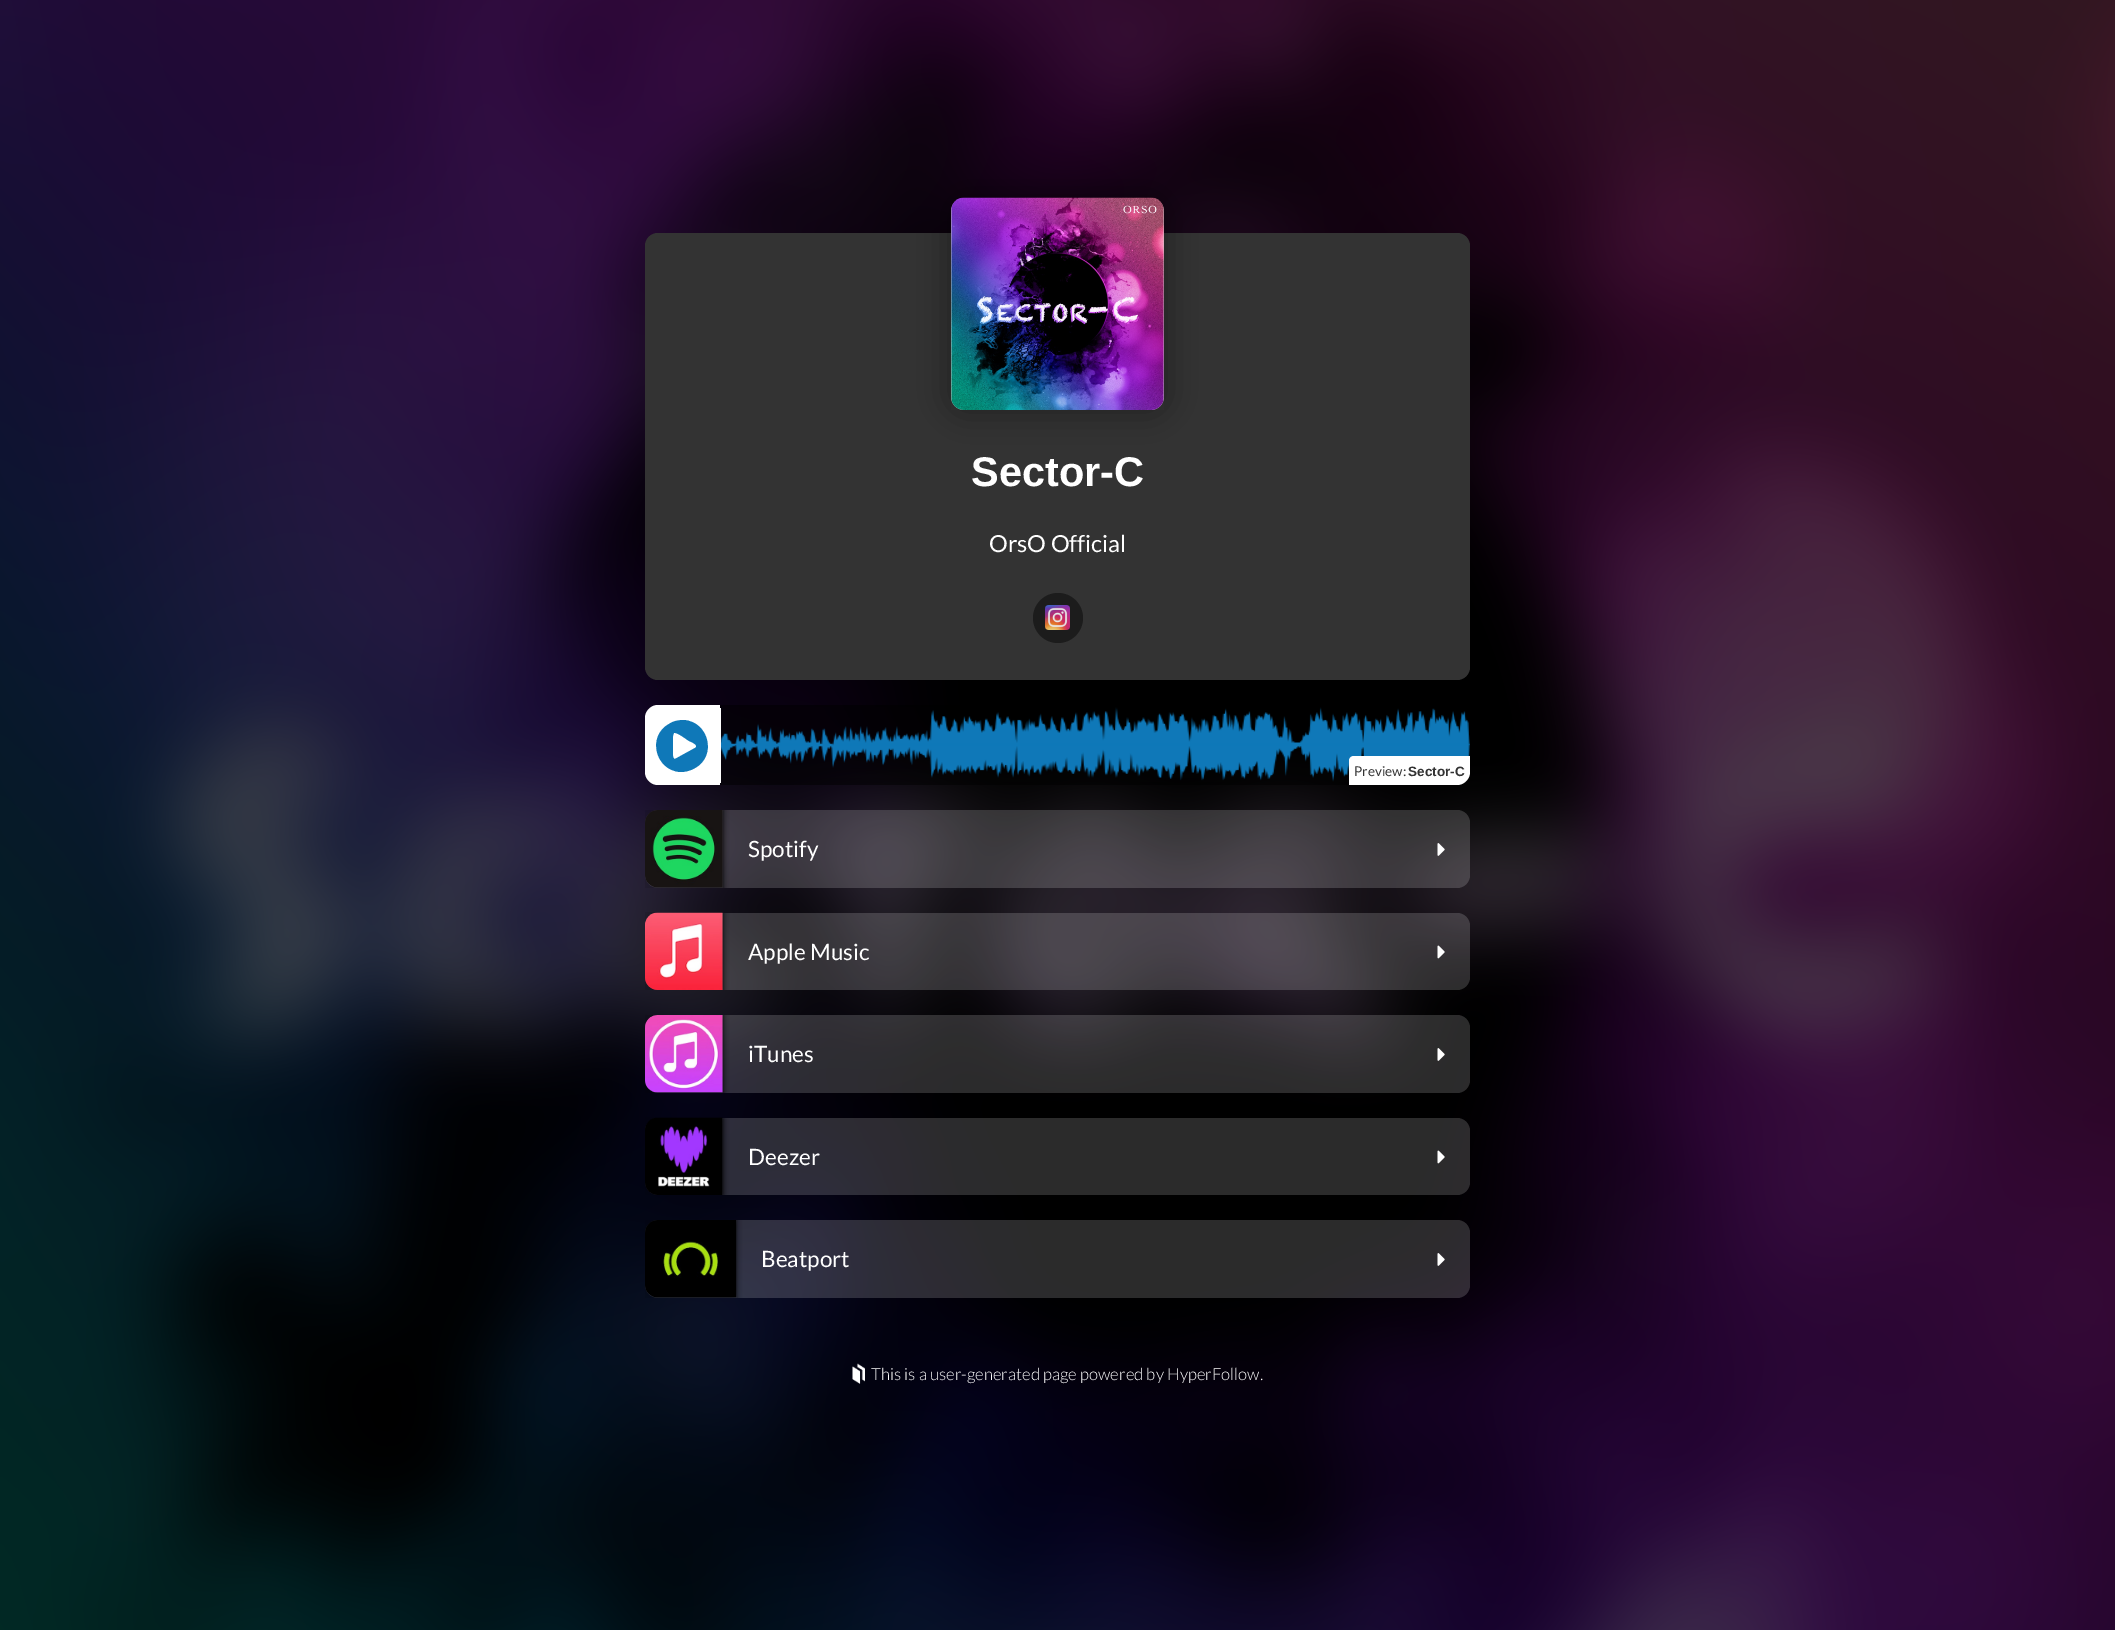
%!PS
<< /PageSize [2115 1630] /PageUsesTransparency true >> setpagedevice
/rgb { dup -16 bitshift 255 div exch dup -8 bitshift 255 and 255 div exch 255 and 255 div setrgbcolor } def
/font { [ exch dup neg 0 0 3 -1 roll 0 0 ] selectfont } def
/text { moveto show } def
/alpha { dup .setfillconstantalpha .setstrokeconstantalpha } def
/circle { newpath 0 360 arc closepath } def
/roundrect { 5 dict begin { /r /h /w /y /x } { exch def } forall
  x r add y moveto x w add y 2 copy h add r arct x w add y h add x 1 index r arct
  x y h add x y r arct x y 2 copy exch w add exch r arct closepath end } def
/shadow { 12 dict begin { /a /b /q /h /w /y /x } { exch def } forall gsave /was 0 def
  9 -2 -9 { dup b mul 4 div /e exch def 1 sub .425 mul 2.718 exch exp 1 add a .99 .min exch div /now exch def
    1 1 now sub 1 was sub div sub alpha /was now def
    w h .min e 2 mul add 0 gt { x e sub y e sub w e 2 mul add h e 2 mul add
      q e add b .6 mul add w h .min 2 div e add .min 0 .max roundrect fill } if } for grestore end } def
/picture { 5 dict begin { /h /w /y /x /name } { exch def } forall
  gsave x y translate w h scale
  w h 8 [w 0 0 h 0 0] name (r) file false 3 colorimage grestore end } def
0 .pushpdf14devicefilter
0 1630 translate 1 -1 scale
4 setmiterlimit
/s1 { /LiberationSans-Bold 41.5 font 16#FFFFFF rgb } def
/s2 { /Lato-Regular 23.5 font 16#FFFFFF rgb } def
/s3 { /Lato-Regular 13.5 font 16#333333 rgb } def
/s4 { /LiberationSans-Bold 13.5 font 16#333333 rgb } def
/s5 { /Lato-Regular 22.5 font 16#FFFFFF rgb } def
/s6 { /Lato-Light 16.7 font 16#FFFFFF rgb } def
16#000000 rgb
0 0 2115 1630 rectfill
(pic1.raw) 0 0 2115 1630 picture
16#333333 rgb
645 233 825 447 13 roundrect fill
16#000000 rgb
951 198 213 212 13 15.5 0.35 shadow
16#CCCCCC rgb
951 198 213 212 13 roundrect fill
(pic2.raw) 951 197 213 213 picture
s1
(Sector-C) 971 486 text
s2
(OrsO Official) 989 552 text
16#1C1C1C rgb
1058 618 25 circle fill
(pic3.raw) 1045 605 25 25 picture
16#FFFFFF rgb
658 705 moveto 720 705 lineto 720 785 lineto 658 785 lineto 651 785 645 779 645 772 curveto 645 718 lineto 645 711 651 705 658 705 curveto closepath fill
16#0F78B8 rgb
669 724 moveto 673 721 679 720 684 720 curveto 709 722 717 756 695 768 curveto 690 771 685 772 680 772 curveto 655 770 647 736 669 724 curveto closepath 695 748 moveto 700 745 689 741 689 741 curveto 686 739 677 732 674 733 curveto 672 735 673 747 673 750 curveto 673 751 672 759 675 759 curveto closepath fill
0.5 alpha
16#000000 rgb
720 705 moveto 1457 705 lineto 1464 705 1470 711 1470 718 curveto 1470 772 lineto 1470 779 1464 785 1457 785 curveto 720 785 lineto closepath fill
1 alpha
16#FFFFFF rgb
720 708 1 75 rectfill
(pic4.raw) 721 707 749 75 picture
1354 756 moveto 1470 756 lineto 1470 772 lineto 1470 779 1464 785 1457 785 curveto 1349 785 lineto 1349 761 lineto 1349 758 1351 756 1354 756 curveto closepath fill
s3
(Preview:) 1354 776 text
s4
(Sector-C) 1408 776 text
0.17 alpha
16#FFFFFF rgb
645 810 825 78 13 roundrect fill
gsave
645 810 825 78 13 roundrect clip newpath
1 alpha
16#000000 rgb
645 810 78 78 0 3 1 shadow
grestore
1 alpha
(pic5.raw) 645 810 78 78 picture
s5
(Spotify) 748 857 text
(pic6.raw) 1437 843 8 13 picture
0.17 alpha
645 913 825 77 13 roundrect fill
gsave
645 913 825 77 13 roundrect clip newpath
1 alpha
16#000000 rgb
645 913 78 77 0 3 1 shadow
grestore
1 alpha
(pic7.raw) 645 912 78 78 picture
(Apple Music) 748 960 text
(pic8.raw) 1437 945 8 14 picture
0.17 alpha
645 1015 825 78 13 roundrect fill
gsave
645 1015 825 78 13 roundrect clip newpath
1 alpha
16#000000 rgb
645 1015 78 78 0 3 1 shadow
grestore
1 alpha
(pic9.raw) 645 1015 78 78 picture
(iTunes) 748 1062 text
(pic10.raw) 1437 1048 8 13 picture
0.17 alpha
645 1118 825 77 13 roundrect fill
gsave
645 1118 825 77 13 roundrect clip newpath
1 alpha
16#000000 rgb
645 1118 78 77 0 3 1 shadow
grestore
1 alpha
(pic11.raw) 645 1117 78 78 picture
(Deezer) 748 1165 text
(pic12.raw) 1437 1150 8 14 picture
0.17 alpha
645 1220 825 78 13 roundrect fill
gsave
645 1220 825 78 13 roundrect clip newpath
1 alpha
16#000000 rgb
645 1220 91 78 0 3 1 shadow
grestore
1 alpha
(pic13.raw) 645 1220 92 78 picture
(Beatport) 761 1267 text
(pic14.raw) 1437 1253 8 13 picture
(pic15.raw) 852 1363 13 21 picture
s6
(This is a user-generated page powered by HyperFollow.) 871 1380 text
.poppdf14devicefilter showpage
